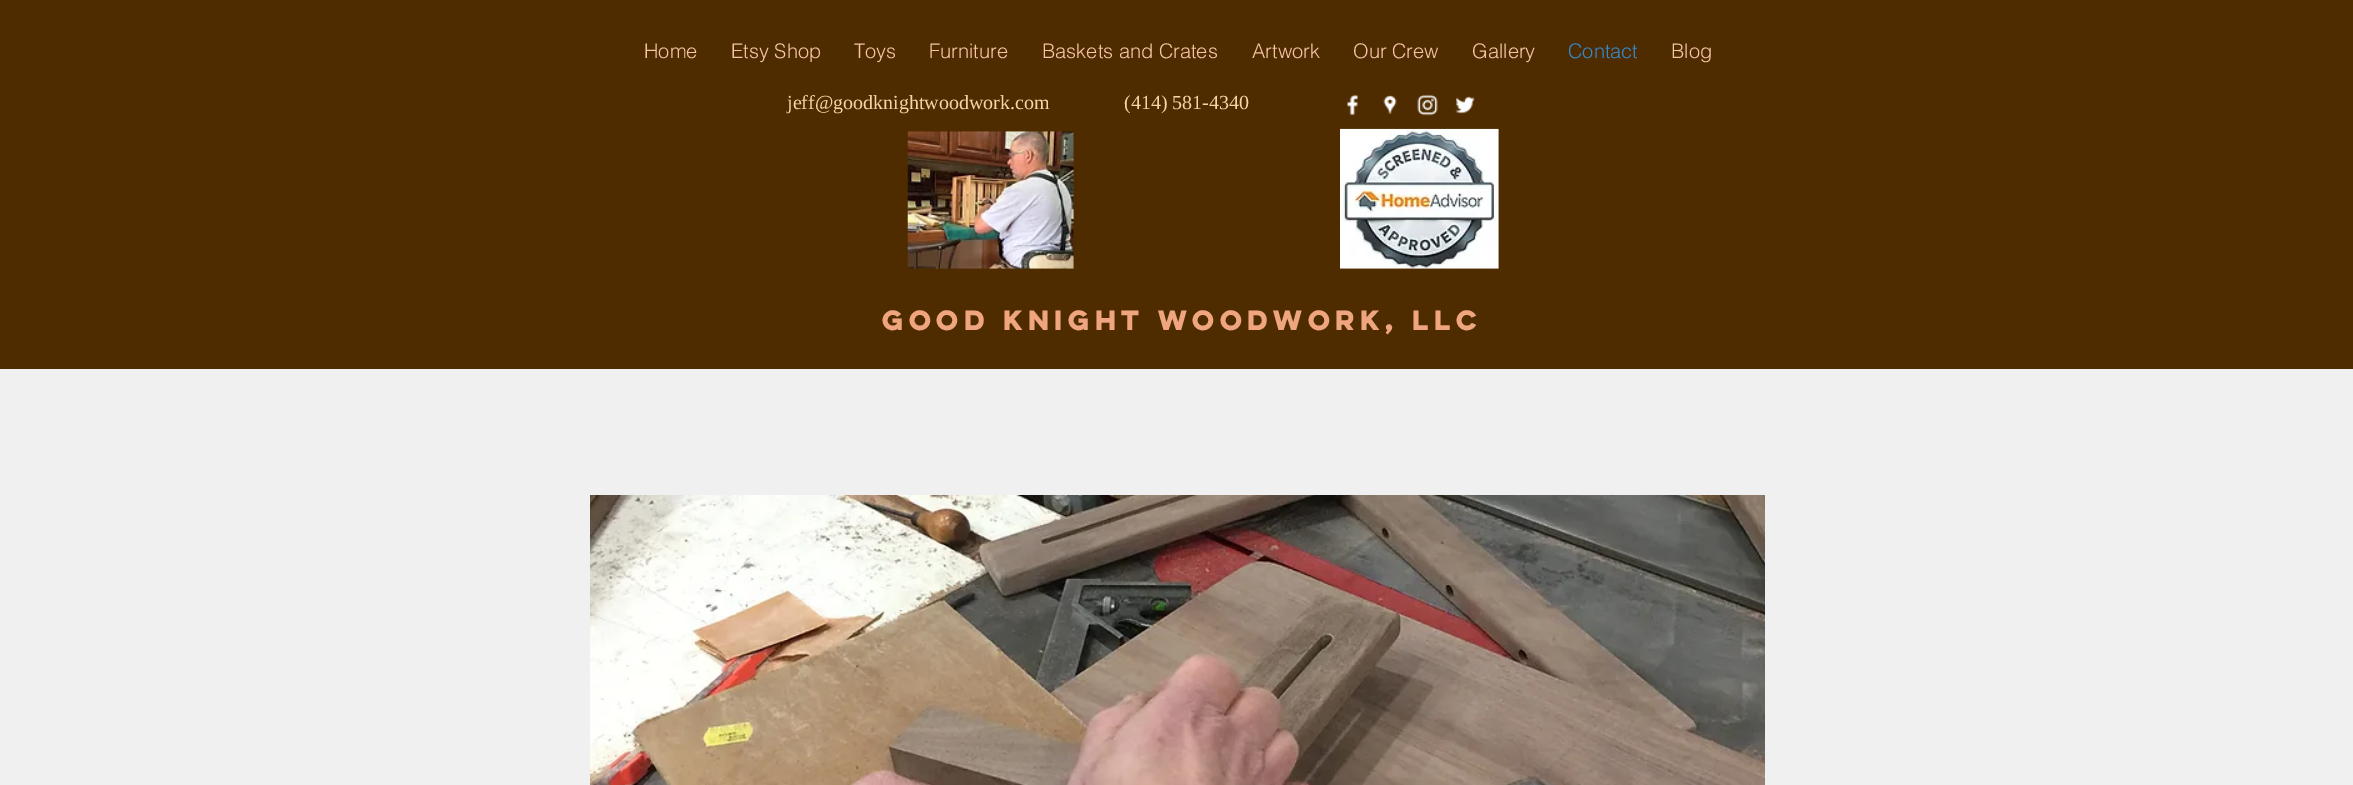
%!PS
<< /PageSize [2353 785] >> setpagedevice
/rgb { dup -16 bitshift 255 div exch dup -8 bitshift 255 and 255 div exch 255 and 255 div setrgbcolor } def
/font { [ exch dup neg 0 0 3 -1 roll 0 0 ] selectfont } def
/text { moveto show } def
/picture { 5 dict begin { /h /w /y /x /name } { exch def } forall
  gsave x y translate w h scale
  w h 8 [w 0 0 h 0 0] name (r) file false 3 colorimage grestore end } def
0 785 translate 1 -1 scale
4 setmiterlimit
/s1 { /helvetica-Light 20 font 16#F7C4A9 rgb } def
/s2 { /helvetica-Light 20 font 16#3588CC rgb } def
/s3 { /LiberationSerif-Regular 20 font 16#F9D5A6 rgb } def
/s4 { /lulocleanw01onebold-Bold 25 font 16#EFA67F rgb } def
16#4F2C00 rgb
0 0 2353 785 rectfill
s1
(Home) 644 58 text
(Etsy Shop) 731 58 text
(Toys) 854 58 text
(Furniture) 929 58 text
(Baskets and Crates) 1042 58 text
(Artwork) 1252 58 text
(Our Crew) 1353 58 text
(Gallery) 1472 58 text
s2
(Contact) 1568 58 text
s1
(Blog) 1671 58 text
s3
(jeff@goodknightwoodwork.com) 787 109 text
(\(414\) 581-4340) 1124 109 text
(pic1.raw) 1347 94 12 22 picture
(pic2.raw) 1383 95 14 19 picture
(pic3.raw) 1417 94 21 22 picture
(pic4.raw) 1455 96 20 18 picture
(pic5.raw) 907 131 167 138 picture
(pic6.raw) 1340 128 159 141 picture
s4
(Good Knight Woodwork, LLC) 882 330 text
16#F0F0F0 rgb
0 369 2353 416 rectfill
(pic7.raw) 590 495 1175 290 picture
showpage
